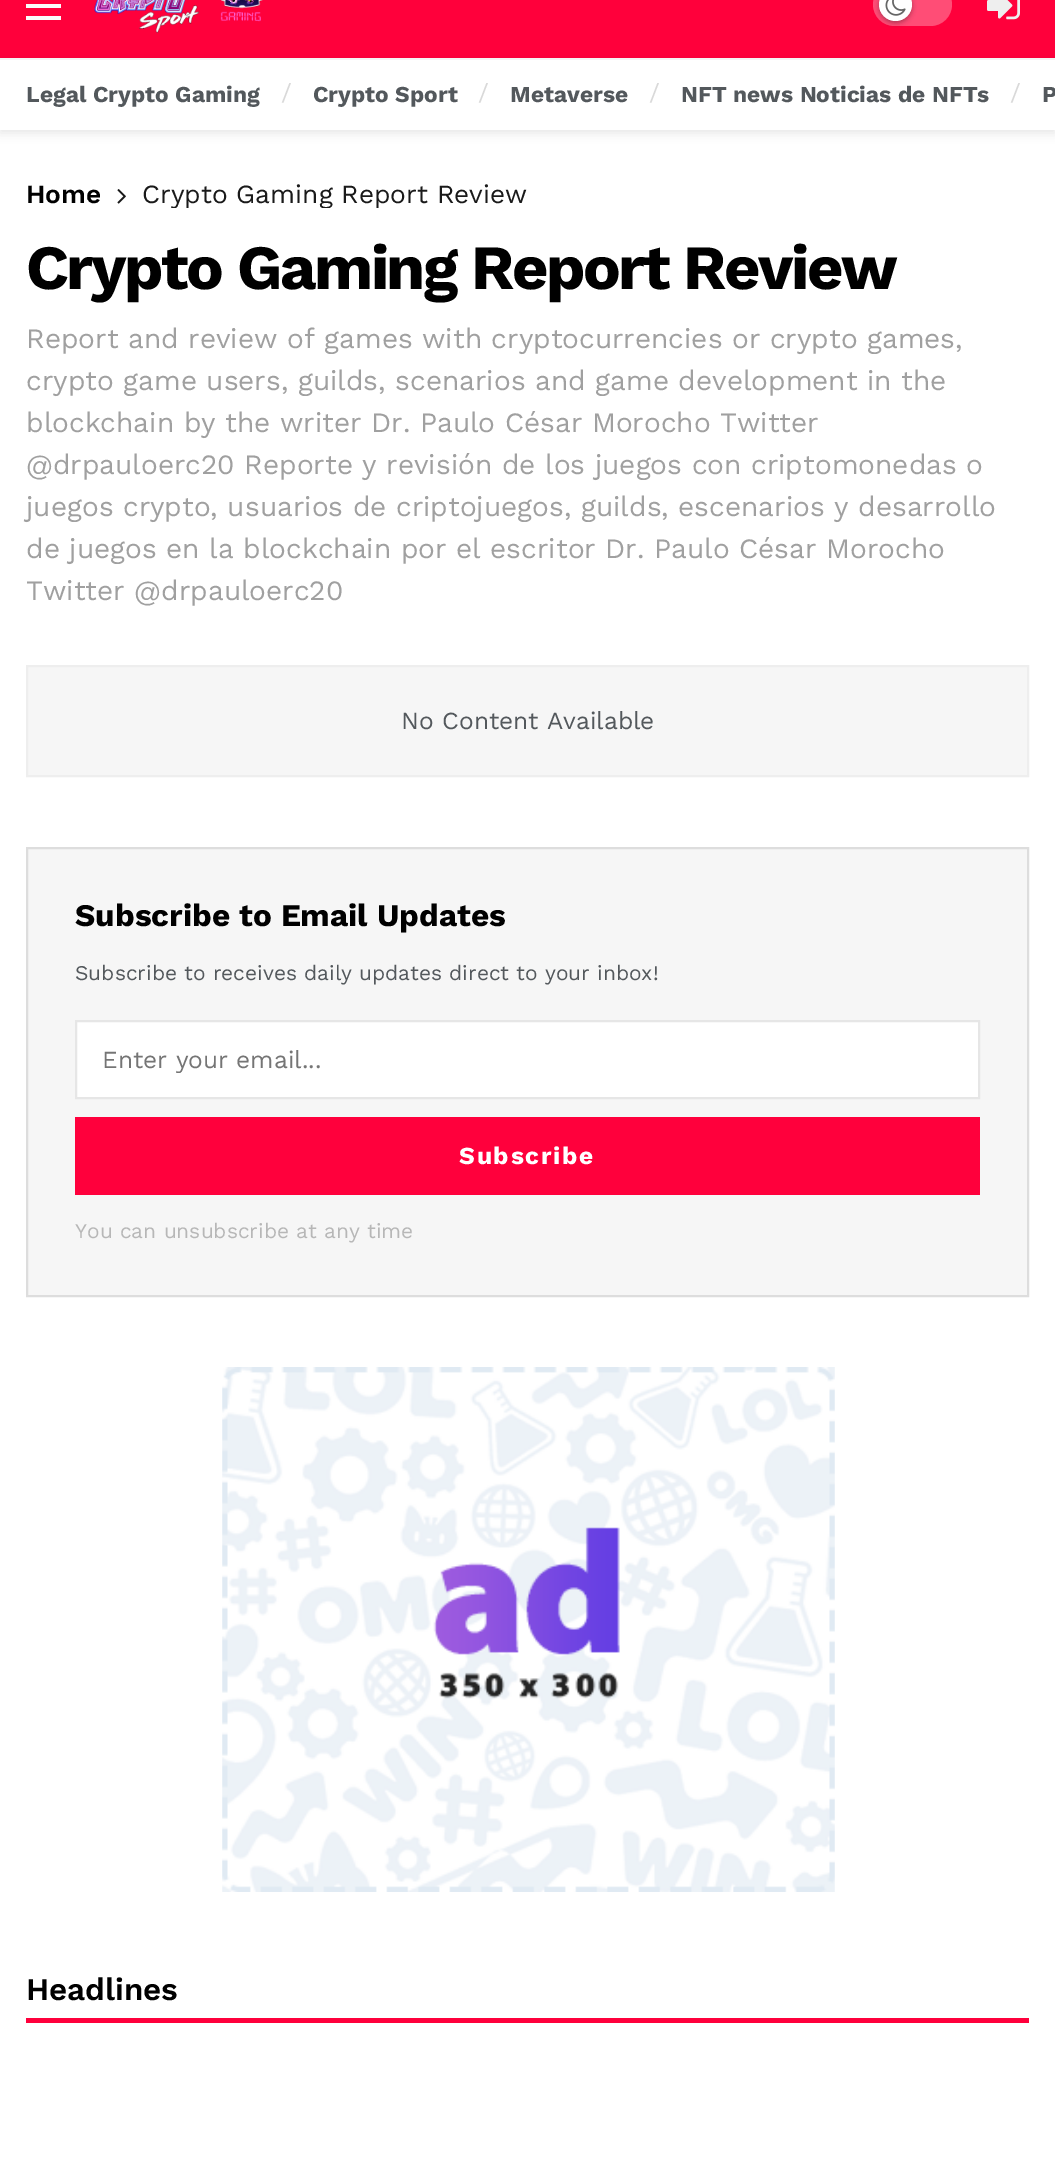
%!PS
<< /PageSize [1055 2177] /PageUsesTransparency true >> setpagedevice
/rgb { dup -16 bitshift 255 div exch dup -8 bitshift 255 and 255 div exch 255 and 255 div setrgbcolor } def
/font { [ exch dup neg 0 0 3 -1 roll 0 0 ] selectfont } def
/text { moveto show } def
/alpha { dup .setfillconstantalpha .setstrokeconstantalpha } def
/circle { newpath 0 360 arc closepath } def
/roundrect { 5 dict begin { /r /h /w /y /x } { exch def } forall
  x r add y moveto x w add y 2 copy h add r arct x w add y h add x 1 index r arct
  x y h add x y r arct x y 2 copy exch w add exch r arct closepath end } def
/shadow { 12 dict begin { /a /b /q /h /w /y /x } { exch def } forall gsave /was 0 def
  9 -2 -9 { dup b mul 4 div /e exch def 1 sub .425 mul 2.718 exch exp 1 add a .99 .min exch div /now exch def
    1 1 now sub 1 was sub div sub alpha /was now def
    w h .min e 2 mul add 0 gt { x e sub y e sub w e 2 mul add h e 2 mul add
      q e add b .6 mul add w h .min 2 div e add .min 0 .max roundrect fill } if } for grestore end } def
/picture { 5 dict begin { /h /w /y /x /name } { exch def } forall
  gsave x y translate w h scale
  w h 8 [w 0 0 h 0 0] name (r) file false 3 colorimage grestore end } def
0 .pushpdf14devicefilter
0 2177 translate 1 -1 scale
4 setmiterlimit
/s1 { /WorkSans-Bold 22.75 font 16#53585C rgb } def
/s2 { /WorkSans-Regular 24.5 font 16#D9D9D9 rgb } def
/s3 { /WorkSans-SemiBold 26.25 font 16#000000 rgb } def
/s4 { /WorkSans-Regular 26.25 font 16#1A1A1A rgb } def
/s5 { /WorkSans-Regular 28 font 16#A0A0A0 rgb } def
/s6 { /WorkSans-Regular 24.5 font 16#53585C rgb } def
/s7 { /WorkSans-Bold 31.5 font 16#000000 rgb } def
/s8 { /WorkSans-Regular 21 font 16#53585C rgb } def
/s9 { /WorkSans-Regular 24.5 font 16#757575 rgb } def
/s10 { /WorkSans-Regular 21 font 16#B7B7B7 rgb } def
16#FFFFFF rgb
0 0 1055 2177 rectfill
16#FF003B rgb
0 0 1055 58 rectfill
16#FAFAFA rgb
26 4 35 4 rectfill
26 16 35 4 rectfill
(pic1.raw) 94 0 169 33 picture
16#FF4D76 rgb
873 -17 79 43 21.5 roundrect fill
16#000000 rgb
879 -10 33 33 16.5 2.5 0.3 shadow
16#FFFFFF rgb
895.5 4.5 16.5 circle fill
(pic2.raw) 885 0 21 16 picture
(pic3.raw) 987 0 33 20 picture
16#000000 rgb
0 61 1055 72 0 5 0.1 shadow
16#FFFFFF rgb
0 60 1055 70 rectfill
16#F4F4F4 rgb
0 58 1055 2 rectfill
s1
(Legal Crypto Gaming) 26 102 text
s2
(/) 281 101 text
s1
(Crypto Sport) 313 102 text
s2
(/) 478 101 text
s1
(Metaverse) 510 102 text
s2
(/) 649 101 text
s1
(NFT news Noticias de NFTs) 681 102 text
s2
(/) 1010 101 text
s1
(P) 1042 102 text
s3
(Home) 26 203 text
(pic4.raw) 117 189 9 15 picture
gsave
26 182 1003 26 rectclip
s4
(Crypto Gaming Report Review) 142 203 text
grestore
/WorkSans-Bold 63 font
26 289 moveto -2.5 0 (Crypto Gaming Report Review) ashow
s5
(Report and review of games with cryptocurrencies or crypto games,) 26 348 text
(crypto game users, guilds, scenarios and game development in the) 26 390 text
(blockchain by the writer Dr. Paulo César Morocho Twitter) 26 432 text
(@drpauloerc20 Reporte y revisión de los juegos con criptomonedas o) 26 474 text
(juegos crypto, usuarios de criptojuegos, guilds, escenarios y desarrollo) 26 516 text
(de juegos en la blockchain por el escritor Dr. Paulo César Morocho) 26 558 text
(Twitter @drpauloerc20) 26 600 text
16#F6F6F6 rgb
27 666 moveto 1028 666 lineto 1028 776 lineto 27 776 lineto closepath gsave fill grestore
16#EEEEEE rgb
2 setlinewidth
stroke
s6
(No Content Available) 401 729 text
16#F6F6F6 rgb
27 848 moveto 1028 848 lineto 1028 1296 lineto 27 1296 lineto closepath gsave fill grestore
16#DDDDDD rgb
stroke
s7
(Subscribe to Email Updates) 75 926 text
s8
(Subscribe to receives daily updates direct to your inbox!) 75 980 text
16#FFFFFF rgb
76 1021 moveto 979 1021 lineto 979 1098 lineto 76 1098 lineto closepath gsave fill grestore
16#E6E6E6 rgb
stroke
gsave
102 1045 852 28 rectclip
s9
(Enter your email...) 102 1068 text
grestore
16#FF003C rgb
75 1117 905 78 rectfill
/WorkSans-Bold 24.5 font
16#FFFFFF rgb
459 1164 moveto 1.75 0 (Subscribe) ashow
s10
(You can unsubscribe at any time) 75 1238 text
(pic5.raw) 222 1367 613 525 picture
/WorkSans-SemiBold 31.5 font
16#000000 rgb
26 2000 moveto -0.1 0 (Headlines) ashow
16#FF003C rgb
26 2018 1003 5 rectfill
.poppdf14devicefilter showpage
